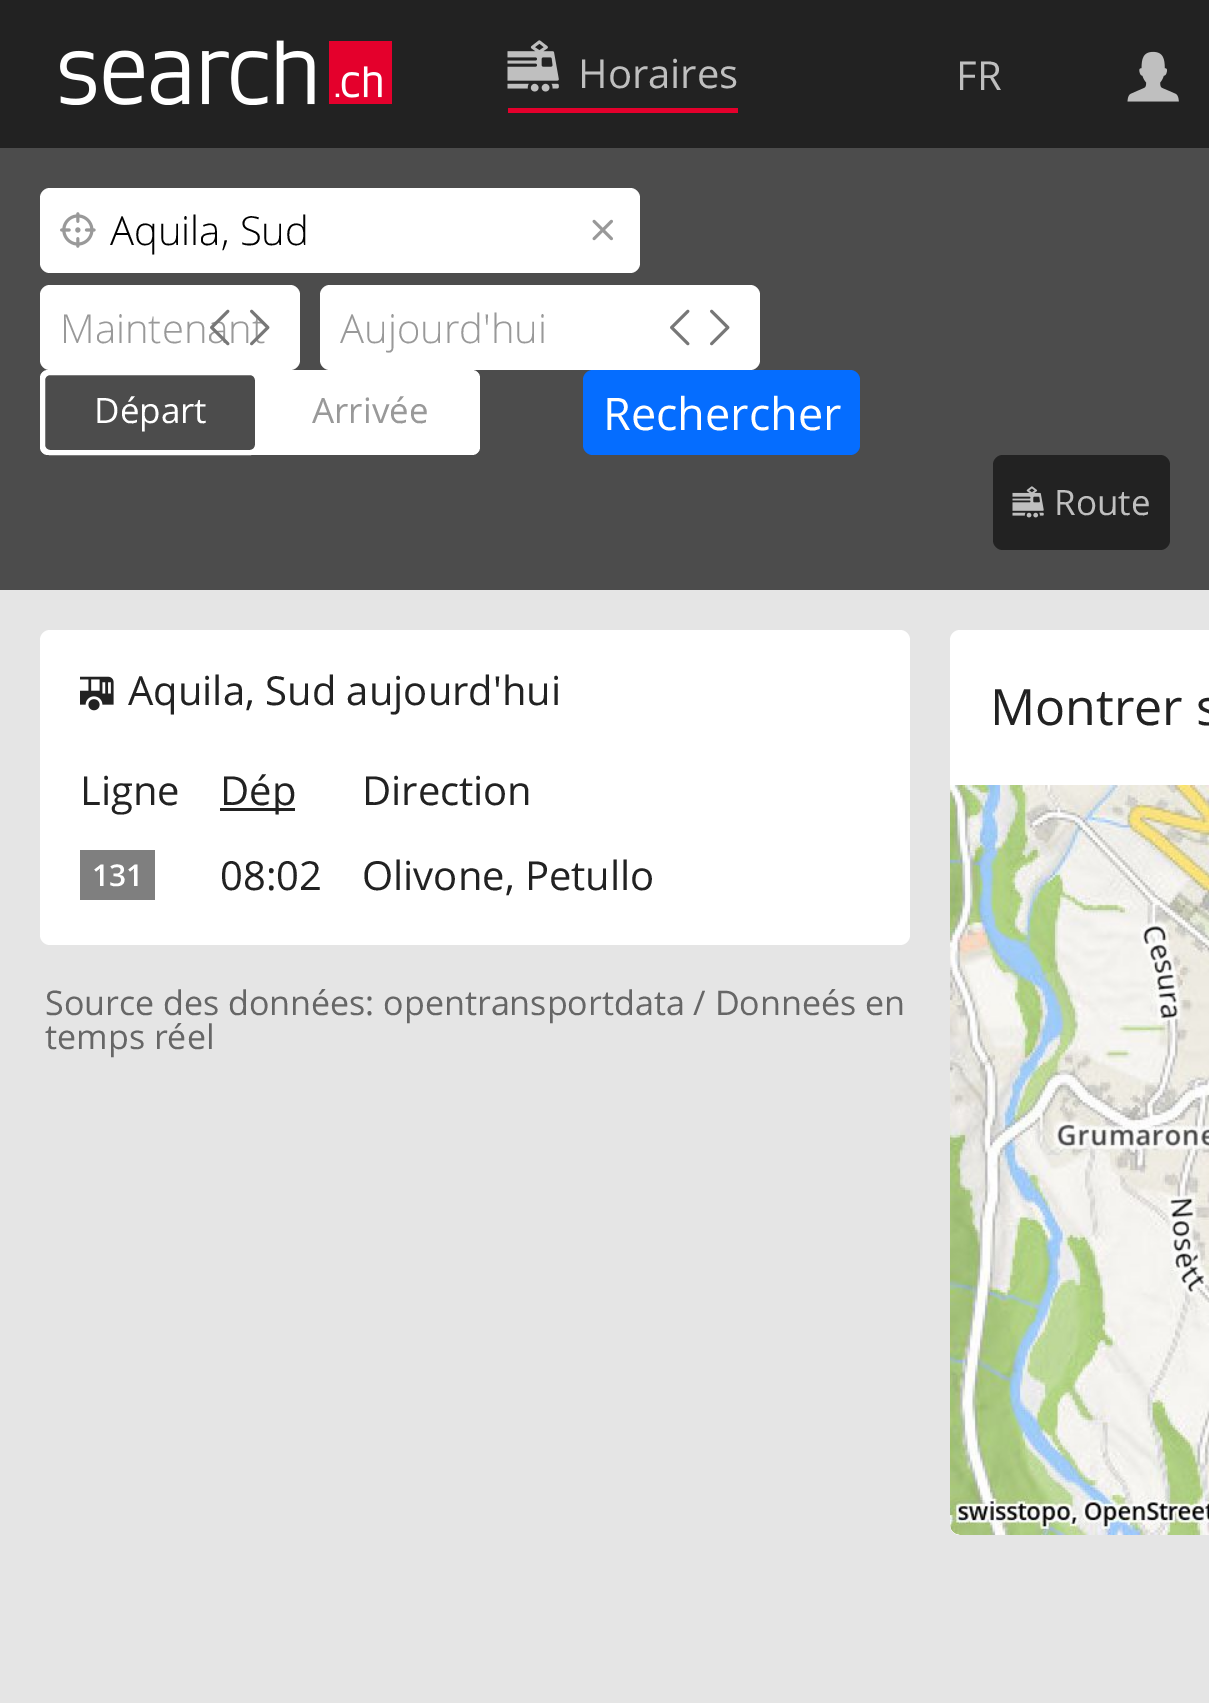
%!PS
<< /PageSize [1209 1703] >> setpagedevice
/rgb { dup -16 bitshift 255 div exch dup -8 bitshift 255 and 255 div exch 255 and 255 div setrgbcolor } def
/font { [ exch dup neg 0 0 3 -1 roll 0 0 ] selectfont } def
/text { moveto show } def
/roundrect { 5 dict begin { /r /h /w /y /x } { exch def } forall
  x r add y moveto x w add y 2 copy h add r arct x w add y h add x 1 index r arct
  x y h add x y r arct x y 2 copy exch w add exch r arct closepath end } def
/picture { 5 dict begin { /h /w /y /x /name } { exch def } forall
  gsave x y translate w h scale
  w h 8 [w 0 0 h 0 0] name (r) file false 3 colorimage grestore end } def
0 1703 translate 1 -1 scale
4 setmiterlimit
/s1 { /OpenSans-Regular 40 font 16#BFBFBF rgb } def
/s2 { /OpenSans-Light 40 font 16#000000 rgb } def
/s3 { /OpenSans-Light 40 font 16#999999 rgb } def
/s4 { /OpenSans-Regular 35 font 16#FFFFFF rgb } def
/s5 { /OpenSans-Regular 35 font 16#999999 rgb } def
/s6 { /OpenSans-Regular 45 font 16#FFFFFF rgb } def
/s7 { /OpenSans-Regular 35 font 16#BFBFBF rgb } def
/s8 { /OpenSans-Regular 40 font 16#222222 rgb } def
/s9 { /OpenSans-SemiBold 30 font 16#FFFFFF rgb } def
/s10 { /OpenSans-Regular 34 font 16#666666 rgb } def
/s11 { /OpenSans-Regular 50 font 16#222222 rgb } def
16#E5E5E5 rgb
0 0 1209 1703 rectfill
16#222222 rgb
0 0 1209 148 rectfill
(pic1.raw) 60 40 332 65 picture
16#E4002C rgb
508 108 230 5 rectfill
(pic2.raw) 507 40 52 52 picture
s1
(Horaires) 578 88 text
(FR) 956 90 text
(pic3.raw) 1127 51 52 51 picture
16#4C4C4C rgb
0 148 1209 442 rectfill
16#FFFFFF rgb
40 188 600 85 10 roundrect fill
(pic4.raw) 60 212 36 36 picture
s2
(Aquila, Sud) 110 245 text
(pic5.raw) 592 219 21 22 picture
16#FFFFFF rgb
40 285 260 85 10 roundrect fill
s3
(Maintenant) 60 343 text
(pic6.raw) 210 309 20 37 picture
(pic7.raw) 250 309 20 37 picture
16#FFFFFF rgb
320 285 440 85 10 roundrect fill
s3
(Aujourd'hui) 340 343 text
(pic8.raw) 670 309 20 37 picture
(pic9.raw) 710 309 20 37 picture
16#FFFFFF rgb
40 370 440 85 8 roundrect fill
16#4C4C4C rgb
42.5 372.5 215 80 7.5 roundrect gsave fill grestore
16#FFFFFF rgb
5 setlinewidth
stroke
s4
(Départ) 94 423 text
s5
(Arrivée) 312 423 text
16#056DFF rgb
583 370 277 85 10 roundrect fill
s6
(Rechercher) 603 430 text
16#222222 rgb
993 455 177 95 10 roundrect fill
(pic10.raw) 1012 486 32 32 picture
s7
(Route) 1054 515 text
16#FFFFFF rgb
40 630 870 315 10 roundrect fill
(pic11.raw) 80 676 34 35 picture
s8
(Aquila, Sud aujourd'hui) 128 705 text
(Ligne) 80 805 text
220 808 75 3 rectfill
(Dép) 220 805 text
(Direction) 362 805 text
16#7F7F7F rgb
80 850 75 50 rectfill
s9
(131) 92 886 text
s8
(08:02) 220 890 text
(Olivone, Petullo) 362 890 text
s10
(Source des données: opentransportdata / Donneés en) 45 1015 text
(temps réel) 45 1049 text
16#FFFFFF rgb
950 630 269 905 10 roundrect fill
s11
(Montrer s) 990 725 text
(pic12.raw) 950 785 259 750 picture
showpage
